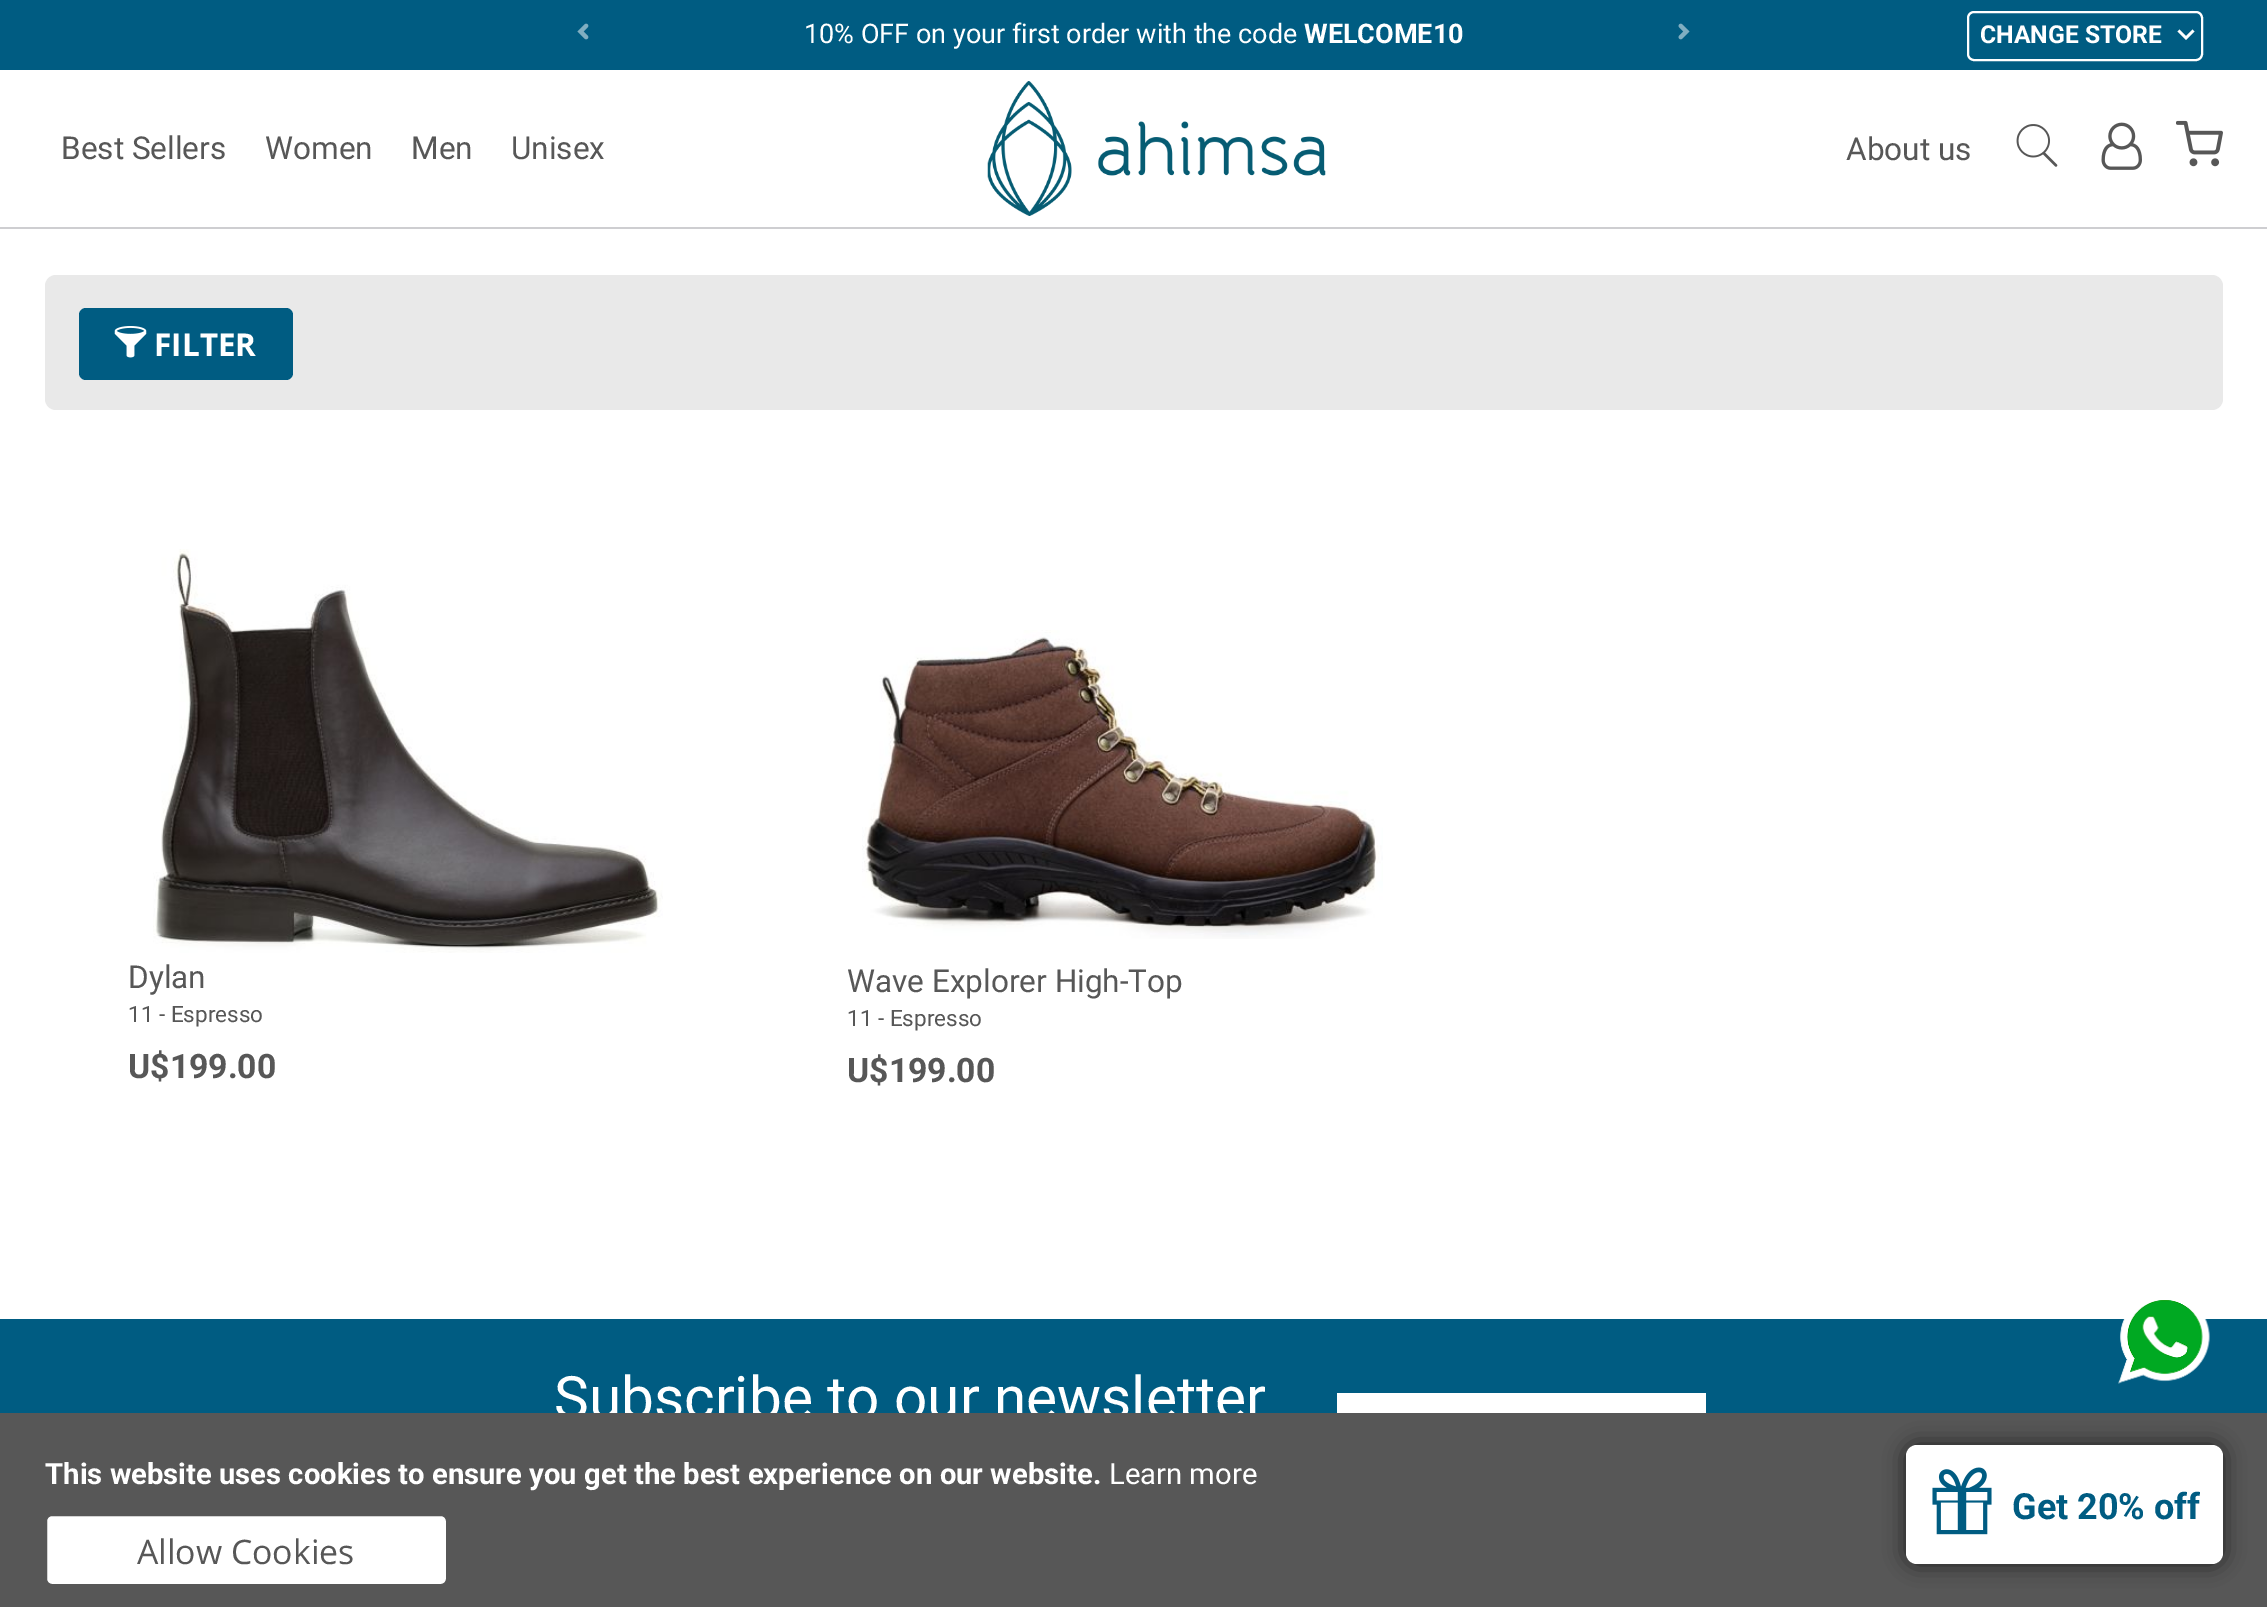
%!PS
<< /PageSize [2267 1607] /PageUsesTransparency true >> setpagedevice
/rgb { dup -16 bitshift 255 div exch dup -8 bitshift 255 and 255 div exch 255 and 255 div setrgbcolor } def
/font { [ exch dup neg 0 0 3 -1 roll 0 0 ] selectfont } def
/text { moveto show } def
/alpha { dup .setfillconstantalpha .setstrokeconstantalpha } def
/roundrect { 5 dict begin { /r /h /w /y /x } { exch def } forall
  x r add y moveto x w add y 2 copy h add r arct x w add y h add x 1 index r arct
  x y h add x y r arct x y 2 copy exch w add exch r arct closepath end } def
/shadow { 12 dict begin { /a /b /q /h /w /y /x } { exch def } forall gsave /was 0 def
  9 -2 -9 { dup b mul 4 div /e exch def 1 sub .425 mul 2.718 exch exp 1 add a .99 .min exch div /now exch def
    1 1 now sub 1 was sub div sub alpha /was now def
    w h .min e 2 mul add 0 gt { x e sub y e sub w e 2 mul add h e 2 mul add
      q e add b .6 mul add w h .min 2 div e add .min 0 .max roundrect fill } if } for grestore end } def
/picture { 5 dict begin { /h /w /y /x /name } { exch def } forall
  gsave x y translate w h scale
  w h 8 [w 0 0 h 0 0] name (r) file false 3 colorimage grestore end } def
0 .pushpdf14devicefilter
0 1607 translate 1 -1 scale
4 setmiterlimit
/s1 { /Roboto-Regular 27 font 16#FFFFFF rgb } def
/s2 { /Roboto-Bold 27 font 16#FFFFFF rgb } def
/s3 { /Roboto-Bold 24.75 font 16#FFFFFF rgb } def
/s4 { /Roboto-Regular 31.5 font 16#575757 rgb } def
/s5 { /OpenSans-Bold 31.5 font 16#FFFFFF rgb } def
/s6 { /Roboto-Regular 22.5 font 16#575757 rgb } def
/s7 { /Roboto-Bold 33.75 font 16#575757 rgb } def
/s8 { /Roboto-Regular 58.5 font 16#FFFFFF rgb } def
/s9 { /Roboto-Bold 29.25 font 16#FFFFFF rgb } def
/s10 { /Roboto-Regular 29.25 font 16#FFFFFF rgb } def
/s11 { /OpenSans-Regular 33.75 font 16#575757 rgb } def
/s12 { /Roboto-Bold 36 font 16#005C82 rgb } def
16#FFFFFF rgb
0 0 2267 1607 rectfill
16#CECED1 rgb
0 227 2267 2 rectfill
16#005C82 rgb
0 0 2267 70 rectfill
(pic1.raw) 577 23 12 17 picture
s1
(10% OFF on your first order with the code) 804 43 text
s2
(WELCOME10) 1304 43 text
(pic2.raw) 1678 23 12 17 picture
2 setlinewidth
1968 12 234 48 6 roundrect stroke
s3
(CHANGE STORE) 1980 43 text
2179.5 29.5 moveto 2186 36 lineto 2192.5 29.5 lineto 2194.5 31.5 lineto 2186 40 lineto 2177.5 31.5 lineto closepath fill
s4
(Best Sellers) 61 159 text
(Women) 265 159 text
(Men) 411 159 text
(Unisex) 511 159 text
(pic3.raw) 987 81 339 135 picture
(About us) 1846 160 text
(pic4.raw) 2016 124 42 43 picture
(pic5.raw) 2101 122 41 48 picture
(pic6.raw) 2176 120 47 47 picture
16#E9E9E9 rgb
45 275 2178 135 11 roundrect fill
16#005C82 rgb
79 308 214 72 7 roundrect fill
(pic7.raw) 114 326 33 32 picture
s5
(FILTER) 154 356 text
(pic8.raw) 153 549 510 404 picture
s4
(Dylan) 128 988 text
s6
(11 - Espresso) 128 1022 text
s7
(U$199.00) 128 1078 text
(pic9.raw) 862 630 521 309 picture
s4
(Wave Explorer High-Top) 847 992 text
s6
(11 - Espresso) 847 1026 text
s7
(U$199.00) 847 1082 text
16#005C82 rgb
0 1319 2267 94 rectfill
(pic10.raw) 2118 1300 92 84 picture
s8
(Subscribe to our newsletter) 554 1418 text
1337 1393 369 20 rectfill
16#575757 rgb
0 1413 2267 194 rectfill
s9
(This website uses cookies to ensure you get the best experience on our website.) 45 1484 text
s10
(Learn more) 1109 1484 text
46 1515 401 70 6 roundrect gsave fill grestore
16#575757 rgb
stroke
s11
(Allow Cookies) 137 1564 text
16#000000 rgb
1906 1445 317 119 11 11 0.63 shadow
16#FFFFFF rgb
1906 1445 317 119 11 roundrect fill
(pic11.raw) 1932 1467 60 68 picture
s12
(Get 20% off) 2012 1519 text
.poppdf14devicefilter showpage
